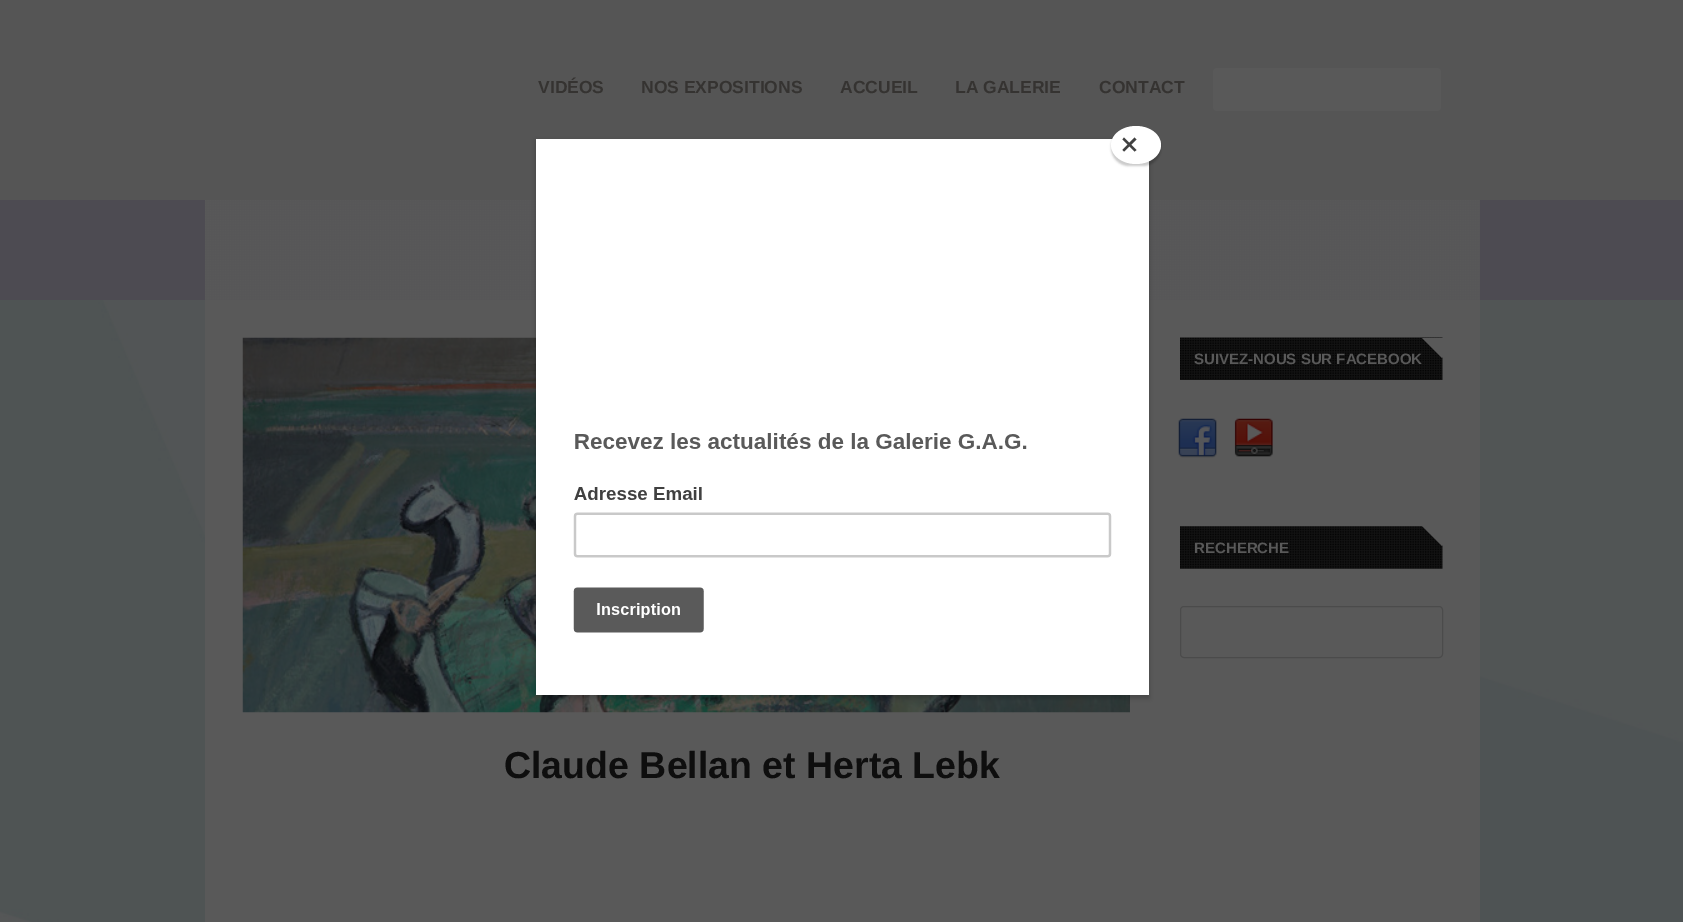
%!PS
<< /PageSize [1683 922] /PageUsesTransparency true >> setpagedevice
/rgb { dup -16 bitshift 255 div exch dup -8 bitshift 255 and 255 div exch 255 and 255 div setrgbcolor } def
/font { [ exch dup neg 0 0 3 -1 roll 0 0 ] selectfont } def
/text { moveto show } def
/alpha { dup .setfillconstantalpha .setstrokeconstantalpha } def
/roundrect { 5 dict begin { /r /h /w /y /x } { exch def } forall
  x r add y moveto x w add y 2 copy h add r arct x w add y h add x 1 index r arct
  x y h add x y r arct x y 2 copy exch w add exch r arct closepath end } def
/shadow { 12 dict begin { /a /b /q /h /w /y /x } { exch def } forall gsave /was 0 def
  9 -2 -9 { dup b mul 4 div /e exch def 1 sub .425 mul 2.718 exch exp 1 add a .99 .min exch div /now exch def
    1 1 now sub 1 was sub div sub alpha /was now def
    w h .min e 2 mul add 0 gt { x e sub y e sub w e 2 mul add h e 2 mul add
      q e add b .6 mul add w h .min 2 div e add .min 0 .max roundrect fill } if } for grestore end } def
/picture { 5 dict begin { /h /w /y /x /name } { exch def } forall
  gsave x y translate w h scale
  w h 8 [w 0 0 h 0 0] name (r) file false 3 colorimage grestore end } def
0 .pushpdf14devicefilter
0 922 translate 1 -1 scale
4 setmiterlimit
/s1 { /LiberationSans-Bold 17.5 font 16#353331 rgb } def
/s2 { /LiberationSans-Bold 15 font 16#595959 rgb } def
/s3 { /LiberationSans-Bold 37.5 font 16#0E0E0E rgb } def
16#555555 rgb
0 0 1683 922 rectfill
s1
(VIDÉOS) 538 93 text
(NOS EXPOSITIONS) 641 93 text
(ACCUEIL) 840 93 text
(LA GALERIE) 955 93 text
(CONTACT) 1099 93 text
16#595959 rgb
1213 68 228 43 4 roundrect fill
16#4D4B52 rgb
0 200 1683 100 rectfill
(pic1.raw) 205 200 1275 100 picture
(pic2.raw) 0 300 1683 622 picture
16#595959 rgb
205 300 1275 622 rectfill
(pic3.raw) 1180 337 263 43 picture
s2
(SUIVEZ-NOUS SUR FACEBOOK) 1194 364 text
gsave
1180 338 263 42 rectclip
1422 338 moveto 1462 338 lineto 1442 358 lineto closepath fill
grestore
(pic4.raw) 1178 418 39 40 picture
(pic5.raw) 1234 418 39 39 picture
(pic6.raw) 1180 526 263 43 picture
gsave
1180 526 263 43 rectclip
1422 526 moveto 1462 526 lineto 1442 546 lineto closepath fill
grestore
(RECHERCHE) 1194 553 text
16#4B4B4B rgb
1180.5 606.5 262 51 3.5 roundrect stroke
(pic7.raw) 242 337 888 376 picture
s3
(Claude Bellan et Herta Lebk) 504 778 text
16#000000 rgb
536 141 613 557 0 2.5 0.2 shadow
(pic8.raw) 536 139 613 556 picture
1111 129 50 37 18.5 1 0.2 shadow
16#FFFFFF rgb
1136 126 moveto 1150 126 1161 134.5 1161 145 curveto 1161 155.5 1150 164 1136 164 curveto 1122 164 1111 155.5 1111 145 curveto 1111 134.5 1122 126 1136 126 curveto closepath fill
16#414141 rgb
1134.5 137.5 moveto 1136.5 139.5 lineto 1124 151.5 lineto 1122.5 150 lineto closepath fill
1122.5 139.5 moveto 1124 137.5 lineto 1136.5 150 lineto 1134.5 151.5 lineto closepath fill
.poppdf14devicefilter showpage
